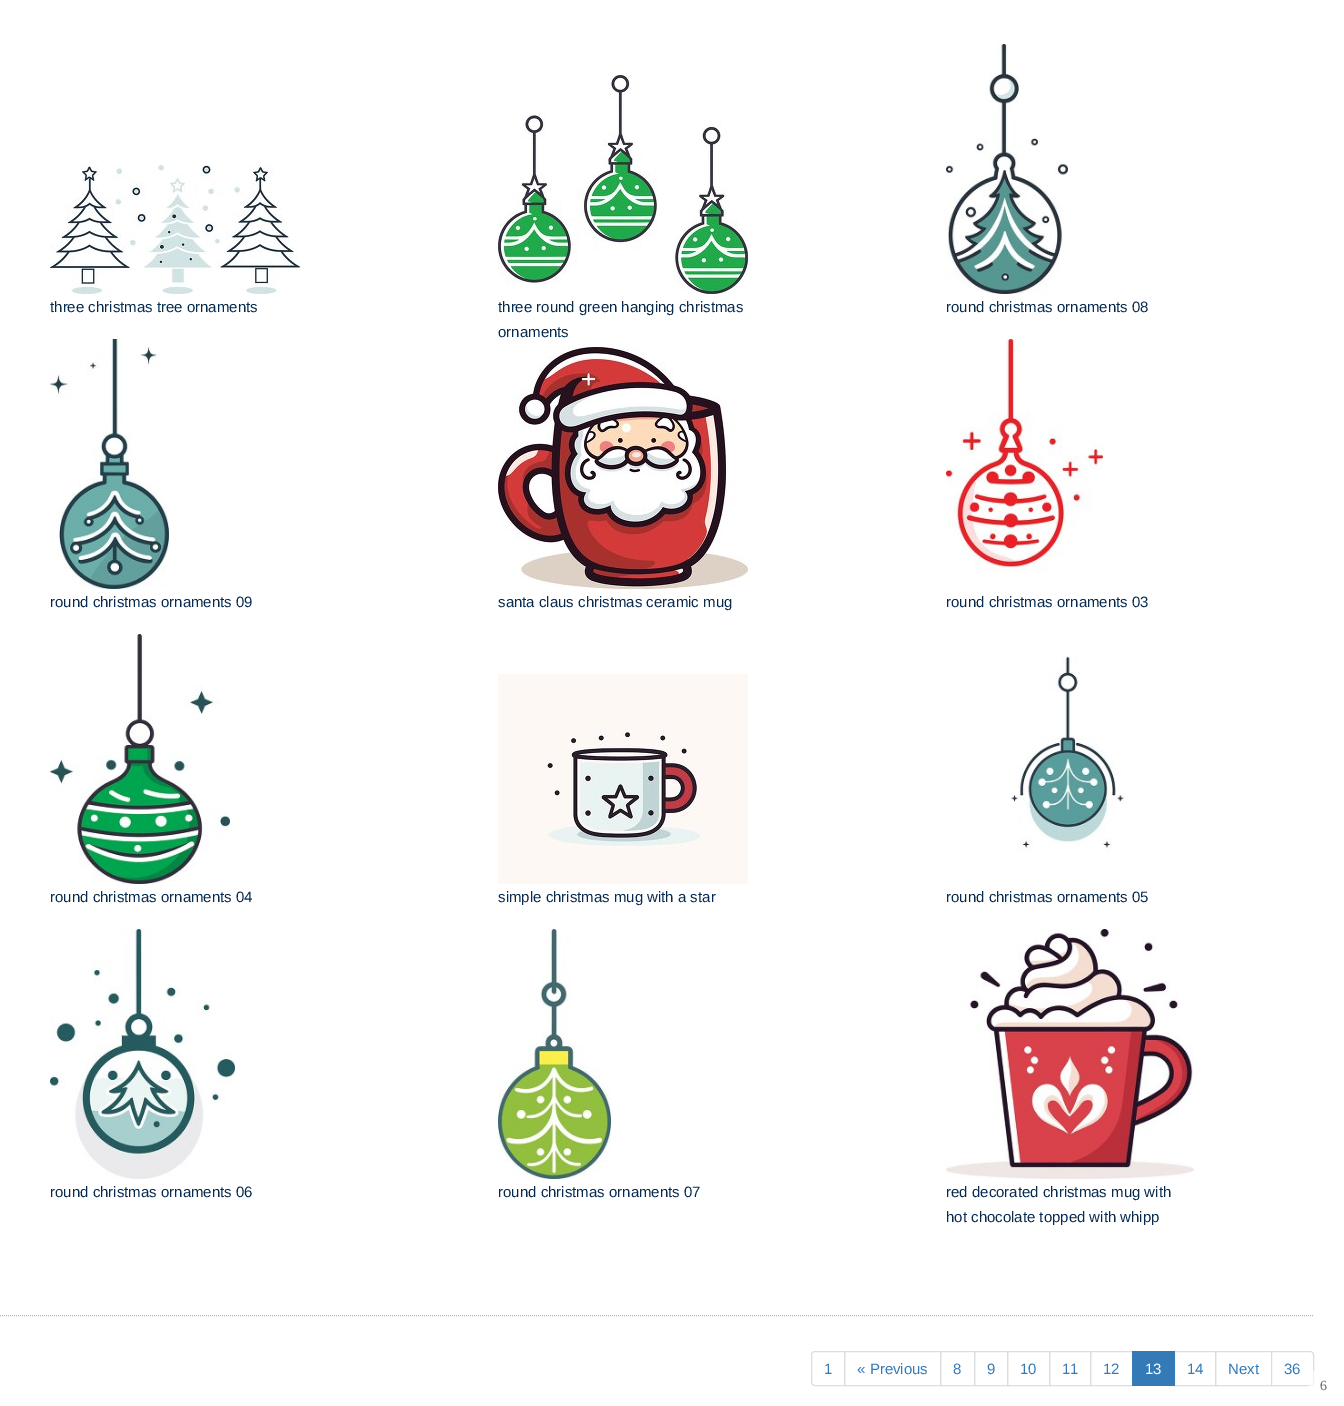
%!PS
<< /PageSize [1344 1406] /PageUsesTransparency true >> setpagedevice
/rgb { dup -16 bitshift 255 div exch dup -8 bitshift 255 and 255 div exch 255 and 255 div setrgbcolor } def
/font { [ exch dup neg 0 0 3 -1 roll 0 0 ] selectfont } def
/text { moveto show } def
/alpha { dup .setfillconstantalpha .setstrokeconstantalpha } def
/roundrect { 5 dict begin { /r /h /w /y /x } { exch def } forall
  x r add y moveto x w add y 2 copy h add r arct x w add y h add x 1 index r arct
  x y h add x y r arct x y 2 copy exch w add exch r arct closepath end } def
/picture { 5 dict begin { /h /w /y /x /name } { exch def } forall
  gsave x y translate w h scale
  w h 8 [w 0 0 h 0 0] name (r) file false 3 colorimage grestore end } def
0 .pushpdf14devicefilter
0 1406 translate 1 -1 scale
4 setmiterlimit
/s1 { /LiberationSans-Regular 15 font 16#072A4F rgb } def
/s2 { /LiberationSans-Regular 15 font 16#337AB7 rgb } def
/s3 { /LiberationSans-Regular 15 font 16#FFFFFF rgb } def
/s4 { /LiberationSerif-Regular 14 font 16#666666 rgb } def
16#FFFFFF rgb
0 0 1344 1406 rectfill
(pic1.raw) 50 165 250 129 picture
s1
(three christmas tree ornaments) 50 312 text
(pic2.raw) 498 75 250 219 picture
(three round green hanging christmas) 498 312 text
(ornaments) 498 337 text
(pic3.raw) 946 44 122 250 picture
(round christmas ornaments 08) 946 312 text
(pic4.raw) 50 339 119 250 picture
(round christmas ornaments 09) 50 607 text
(pic5.raw) 498 347 250 242 picture
(santa claus christmas ceramic mug) 498 607 text
(pic6.raw) 946 339 157 233 picture
(round christmas ornaments 03) 946 607 text
(pic7.raw) 50 634 180 250 picture
(round christmas ornaments 04) 50 902 text
(pic8.raw) 498 674 250 210 picture
(simple christmas mug with a star) 498 902 text
(pic9.raw) 1011 656 114 196 picture
(round christmas ornaments 05) 946 902 text
(pic10.raw) 50 929 185 250 picture
(round christmas ornaments 06) 50 1197 text
(pic11.raw) 498 929 113 250 picture
(round christmas ornaments 07) 498 1197 text
(pic12.raw) 946 929 248 250 picture
(red decorated christmas mug with) 946 1197 text
(hot chocolate topped with whipp) 946 1222 text
16#B3B3B3 rgb
[1 1] 0 setdash
0 1315.5 moveto 1314 1315.5 lineto stroke
16#DDDDDD rgb
[] 0 setdash
815 1351.5 moveto 844.5 1351.5 lineto 844.5 1385.5 lineto 815 1385.5 lineto 813 1385.5 811.5 1384 811.5 1382 curveto 811.5 1355 lineto 811.5 1353 813 1351.5 815 1351.5 curveto closepath stroke
s2
(1) 824 1374 text
16#DDDDDD rgb
844.5 1351.5 96 34 rectstroke
s2
(« Previous) 857 1374 text
16#DDDDDD rgb
940.5 1351.5 34 34 rectstroke
s2
(8) 953 1374 text
16#DDDDDD rgb
974.5 1351.5 33 34 rectstroke
s2
(9) 987 1374 text
16#DDDDDD rgb
1007.5 1351.5 42 34 rectstroke
s2
(10) 1020 1374 text
16#DDDDDD rgb
1049.5 1351.5 41 34 rectstroke
s2
(11) 1062 1374 text
16#DDDDDD rgb
1090.5 1351.5 42 34 rectstroke
s2
(12) 1103 1374 text
16#DDDDDD rgb
1174.5 1351.5 41 34 rectstroke
16#337AB7 rgb
1132 1351 43 35 rectfill
s3
(13) 1145 1374 text
s2
(14) 1187 1374 text
16#DDDDDD rgb
1215.5 1351.5 56 34 rectstroke
s2
(Next) 1228 1374 text
16#FFFFFF rgb
1271.5 1351.5 moveto 1310 1351.5 lineto 1312 1351.5 1313.5 1353 1313.5 1355 curveto 1313.5 1382 lineto 1313.5 1384 1312 1385.5 1310 1385.5 curveto 1271.5 1385.5 lineto closepath gsave fill grestore
16#DDDDDD rgb
stroke
s2
(36) 1284 1374 text
0.6 alpha
16#FFFFFF rgb
1309 1371 28 28 2 roundrect fill
1 alpha
s4
(6) 1320 1390 text
.poppdf14devicefilter showpage
